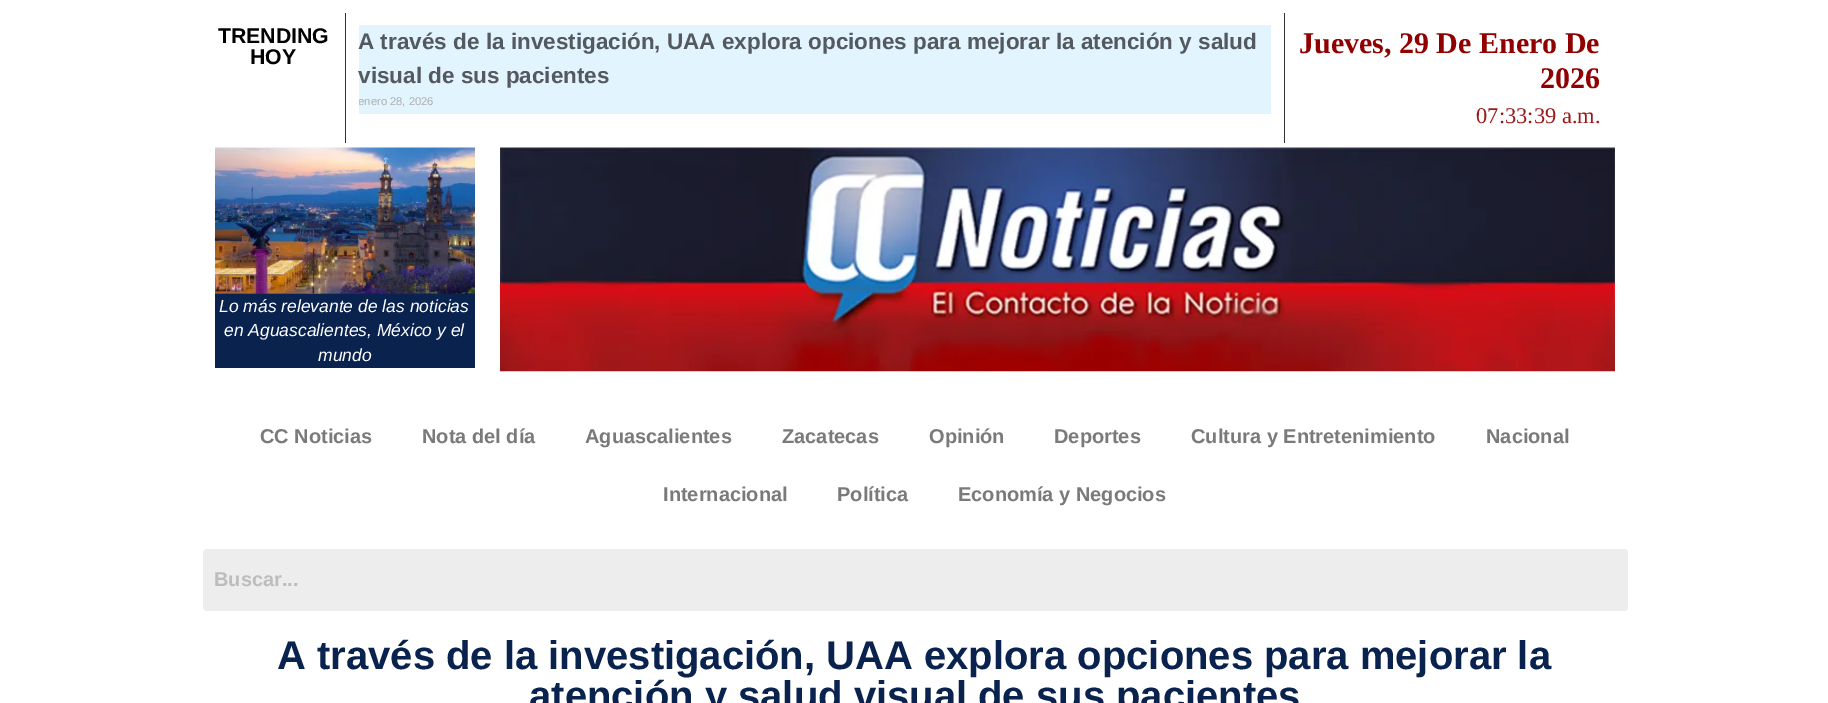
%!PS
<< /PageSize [1828 703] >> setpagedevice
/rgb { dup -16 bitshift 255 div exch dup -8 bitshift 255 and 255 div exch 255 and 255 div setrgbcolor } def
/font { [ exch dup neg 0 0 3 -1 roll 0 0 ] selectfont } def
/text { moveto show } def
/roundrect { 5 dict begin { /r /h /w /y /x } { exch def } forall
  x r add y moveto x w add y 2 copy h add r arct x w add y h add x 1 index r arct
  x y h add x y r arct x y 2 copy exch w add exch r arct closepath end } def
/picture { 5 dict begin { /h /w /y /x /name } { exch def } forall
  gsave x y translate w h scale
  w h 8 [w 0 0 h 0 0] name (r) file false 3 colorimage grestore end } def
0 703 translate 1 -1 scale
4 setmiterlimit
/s1 { /LiberationSans-Bold 21.25 font 16#000000 rgb } def
/s2 { /LiberationSans-Bold 22.5 font 16#54595F rgb } def
/s3 { /LiberationSans-Regular 11.25 font 16#ADADAD rgb } def
/s4 { /LiberationSerif-Bold 30 font 16#900000 rgb } def
/s5 { /LiberationSerif-Regular 22.5 font 16#9B1A1A rgb } def
/s6 { /LiberationSans-Italic 17.5 font 16#FFFFFF rgb } def
/s7 { /LiberationSans-Bold 20 font 16#7A7A7A rgb } def
/s8 { /LiberationSans-Bold 20 font 16#BDBDBD rgb } def
/s9 { /LiberationSans-Bold 40 font 16#09224E rgb } def
16#FFFFFF rgb
0 0 1828 703 rectfill
s1
(TRENDING) 218 43 text
(HOY) 250 64 text
16#333333 rgb
1284 13 1 130 rectfill
345 13 1 130 rectfill
16#E2F5FF rgb
359 25 912 89 rectfill
s2
(A través de la investigación, UAA explora opciones para mejorar la atención y salud) 358 49 text
(visual de sus pacientes) 358 83 text
gsave
359 25 912 89 rectclip
s3
(enero 28, 2026) 358 105 text
grestore
s4
(Jueves, 29 De Enero De) 1299 53 text
(2026) 1540 88 text
s5
(07:33:39 a.m.) 1476 123 text
16#09224E rgb
215 293 260 75 rectfill
(pic1.raw) 215 147 260 147 picture
s6
(Lo más relevante de las noticias) 219 312 text
(en Aguascalientes, México y el) 224 336 text
(mundo) 318 361 text
(pic2.raw) 500 147 1115 225 picture
s7
(CC Noticias) 260 443 text
(Nota del día) 422 443 text
(Aguascalientes) 585 443 text
(Zacatecas) 782 443 text
(Opinión) 929 443 text
(Deportes) 1054 443 text
(Cultura y Entretenimiento) 1191 443 text
(Nacional) 1486 443 text
(Internacional) 663 501 text
(Política) 837 501 text
(Economía y Negocios) 958 501 text
16#EDEDED rgb
203 549 1425 62 4 roundrect fill
s8
(Buscar...) 214 586 text
s9
(A través de la investigación, UAA explora opciones para mejorar la) 277 669 text
(atención y salud visual de sus pacientes) 529 709 text
showpage
